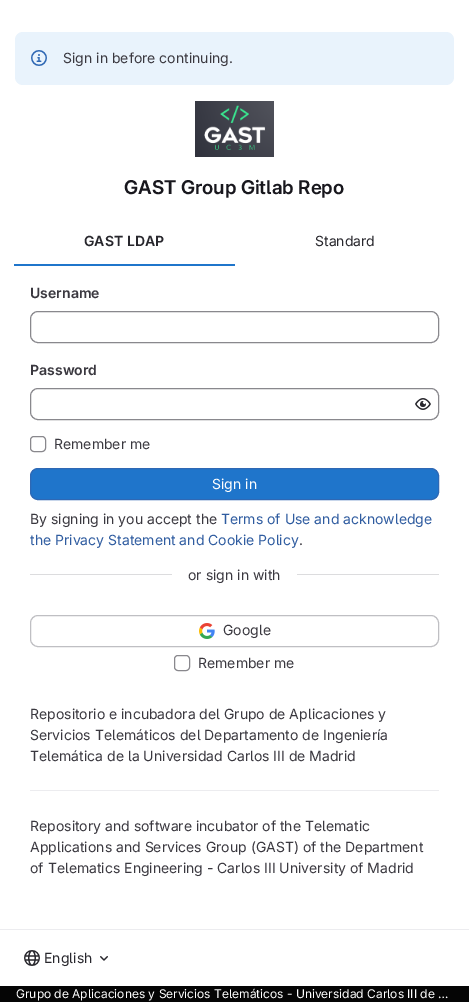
%!PS
<< /PageSize [469 1002] >> setpagedevice
/rgb { dup -16 bitshift 255 div exch dup -8 bitshift 255 and 255 div exch 255 and 255 div setrgbcolor } def
/font { [ exch dup neg 0 0 3 -1 roll 0 0 ] selectfont } def
/text { moveto show } def
/roundrect { 5 dict begin { /r /h /w /y /x } { exch def } forall
  x r add y moveto x w add y 2 copy h add r arct x w add y h add x 1 index r arct
  x y h add x y r arct x y 2 copy exch w add exch r arct closepath end } def
/picture { 5 dict begin { /h /w /y /x /name } { exch def } forall
  gsave x y translate w h scale
  w h 8 [w 0 0 h 0 0] name (r) file false 3 colorimage grestore end } def
0 1002 translate 1 -1 scale
4 setmiterlimit
/s1 { /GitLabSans-Regular 14 font 16#3A383F rgb } def
/s2 { /GitLabSans-SemiBold 19 font 16#18171D rgb } def
/s3 { /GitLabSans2-SemiBold 14 font 16#28272D rgb } def
/s4 { /GitLabSans-Regular 14 font 16#28272D rgb } def
/s5 { /GitLabSans2-SemiBold 14 font 16#3A383F rgb } def
/s6 { /GitLabSans-Regular 14 font 16#FFFFFF rgb } def
/s7 { /GitLabSans-Regular 14 font 16#2F5CA0 rgb } def
/s8 { /GitLabSans-Regular 12 font 16#FFFFFF rgb } def
16#FFFFFF rgb
0 0 469 1002 rectfill
16#E9F3FC rgb
15 32 439 53 8 roundrect fill
(pic1.raw) 31 50 16 16 picture
s1
(Sign in before continuing.) 63 63 text
(pic2.raw) 195 101 79 56 picture
s2
(GAST Group Gitlab Repo) 124 194 text
s3
(GAST LDAP) 84 246 text
16#1F75CB rgb
14 264 221 2 rectfill
s4
(Standard) 315 246 text
s5
(Username) 30 298 text
16#89888D rgb
30.5 311.5 408 31 7.5 roundrect stroke
s5
(Password) 30 375 text
16#89888D rgb
30.5 388.5 408 31 7.5 roundrect stroke
(pic3.raw) 415 398 16 12 picture
30.5 436.5 15 15 3.5 roundrect stroke
s1
(Remember me) 54 449 text
16#1F75CB rgb
30.5 468.5 408 31 7.5 roundrect gsave fill grestore
16#2F68B4 rgb
stroke
s6
(Sign in) 212 489 text
s1
(By signing in you accept the) 30 524 text
s7
(Terms of Use and acknowledge) 221 524 text
(the Privacy Statement and Cookie Policy) 30 545 text
s1
(.) 299 545 text
16#DCDCDE rgb
30 574 142 1 rectfill
s1
(or sign in with) 188 580 text
16#DCDCDE rgb
297 574 142 1 rectfill
16#BFBFC3 rgb
30.5 615.5 408 31 7.5 roundrect stroke
(pic4.raw) 199 623 16 16 picture
s1
(Google) 223 635 text
16#89888D rgb
174.5 655.5 15 15 3.5 roundrect stroke
s1
(Remember me) 198 668 text
(Repositorio e incubadora del Grupo de Aplicaciones y) 30 719 text
(Servicios Telemáticos del Departamento de Ingeniería) 30 740 text
(Telemática de la Universidad Carlos III de Madrid) 30 761 text
16#ECECEF rgb
30 790 409 1 rectfill
s1
(Repository and software incubator of the Telematic) 30 831 text
(Applications and Services Group \(GAST\) of the Department) 30 852 text
(of Telematics Engineering - Carlos III University of Madrid) 30 873 text
16#ECECEF rgb
0 929 469 1 rectfill
(pic5.raw) 24 950 16 16 picture
s4
(English) 44 963 text
(pic6.raw) 100 956 8 5 picture
16#050505 rgb
0 986 469 16 rectfill
s8
(Grupo de Aplicaciones y Servicios Telemáticos - Universidad Carlos III de …) 16 998 text
showpage
